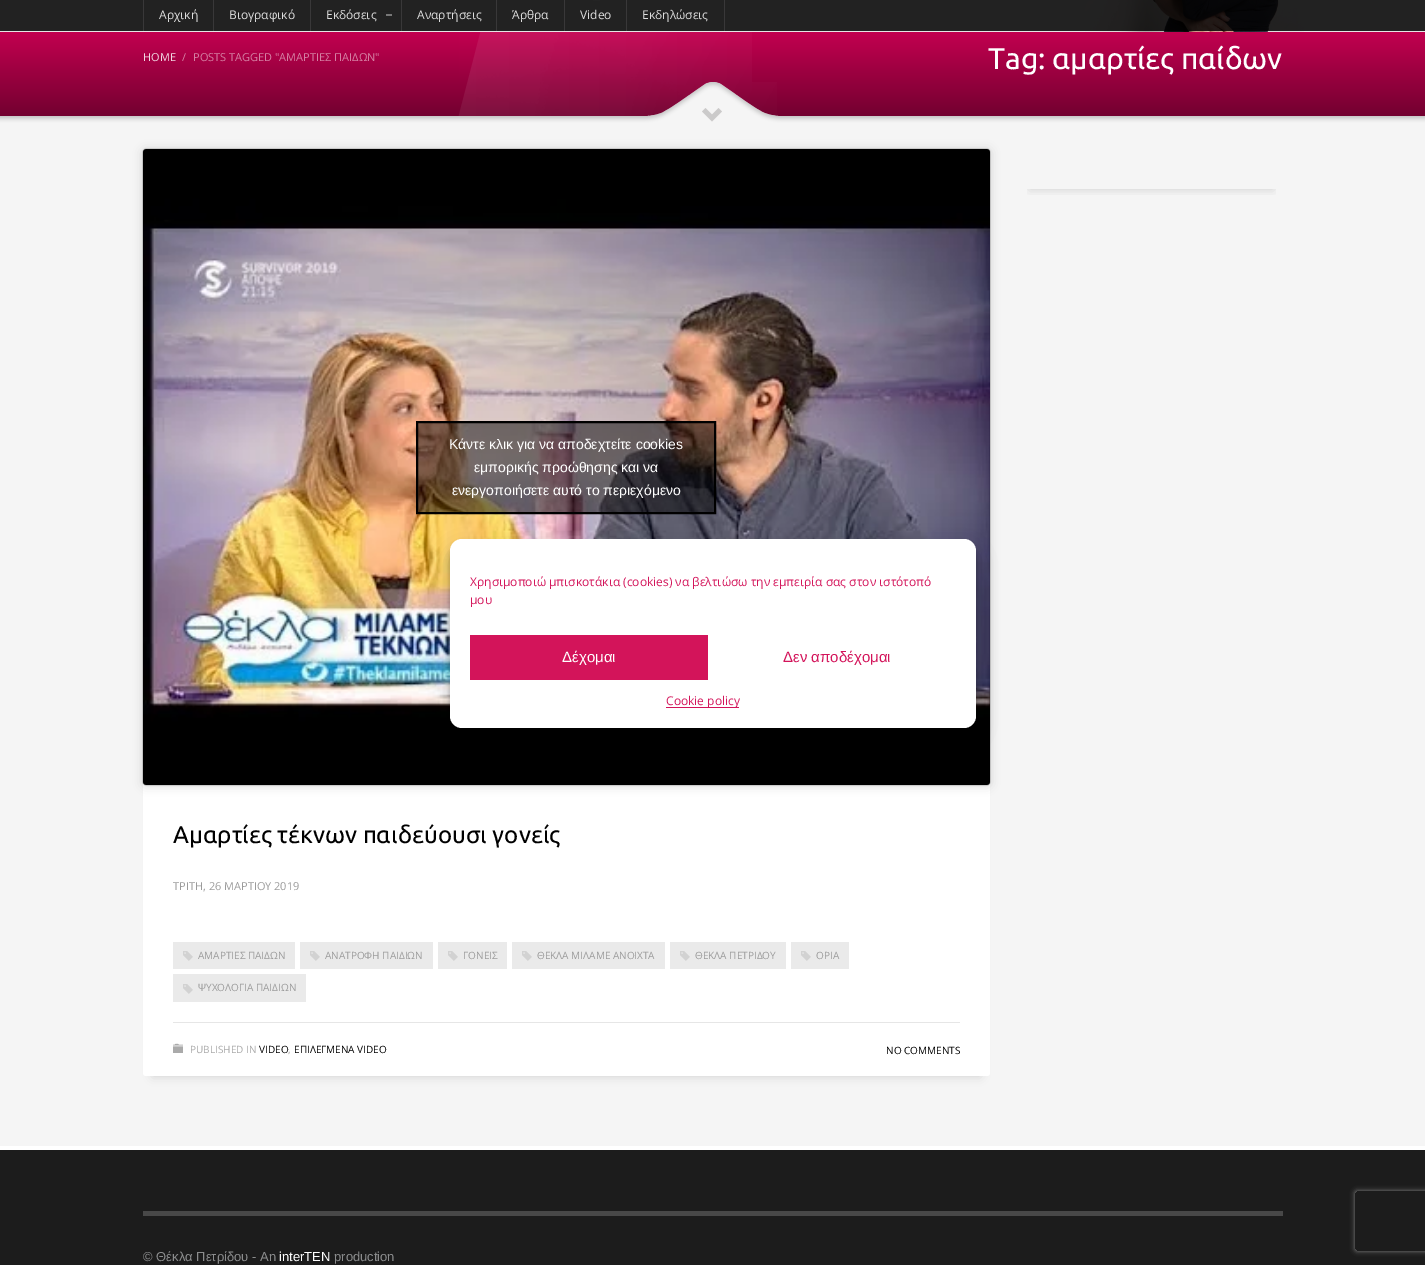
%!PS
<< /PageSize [1425 1265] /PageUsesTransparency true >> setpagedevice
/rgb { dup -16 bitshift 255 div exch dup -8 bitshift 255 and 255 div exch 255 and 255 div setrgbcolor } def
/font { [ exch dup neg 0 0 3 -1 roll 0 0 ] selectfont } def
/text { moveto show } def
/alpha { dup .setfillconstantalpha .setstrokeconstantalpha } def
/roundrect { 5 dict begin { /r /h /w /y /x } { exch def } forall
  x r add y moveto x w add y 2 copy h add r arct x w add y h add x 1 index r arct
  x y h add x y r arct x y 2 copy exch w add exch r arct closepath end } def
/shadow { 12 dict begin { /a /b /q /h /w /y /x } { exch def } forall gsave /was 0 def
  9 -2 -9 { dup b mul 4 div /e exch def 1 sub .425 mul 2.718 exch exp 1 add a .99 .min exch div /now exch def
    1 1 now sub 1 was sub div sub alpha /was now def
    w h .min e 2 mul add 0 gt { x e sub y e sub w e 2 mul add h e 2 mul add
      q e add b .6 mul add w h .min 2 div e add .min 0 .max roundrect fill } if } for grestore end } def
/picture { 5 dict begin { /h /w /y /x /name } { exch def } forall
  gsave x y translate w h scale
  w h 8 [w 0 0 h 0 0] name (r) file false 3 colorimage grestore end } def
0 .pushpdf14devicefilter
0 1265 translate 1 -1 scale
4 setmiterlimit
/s1 { /OpenSans-Regular 12 font 16#DDDDDD rgb } def
/s2 { /OpenSans-Regular 11 font 16#F2D9E3 rgb } def
/s3 { /OpenSans-Regular 11 font 16#D580A3 rgb } def
/s4 { /Ubuntu-Regular 30 font 16#FFFFFF rgb } def
/s5 { /LiberationSans-Regular 14 font 16#FFFFFF rgb } def
/s6 { /Ubuntu-Regular 24 font 16#000000 rgb } def
/s7 { /OpenSans-Regular 11 font 16#9B9B9B rgb } def
/s8 { /OpenSans-Regular 10 font 16#9B9B9B rgb } def
/s9 { /OpenSans-Regular 10 font 16#AAAAAA rgb } def
/s10 { /OpenSans-Regular 10 font 16#000000 rgb } def
/s11 { /LiberationSans-Regular 13 font 16#8B8C8D rgb } def
/s12 { /LiberationSans-Regular 13 font 16#FFFFFF rgb } def
/s13 { /OpenSans-Regular 12 font 16#D3145A rgb } def
/s14 { /LiberationSans-Regular 15 font 16#FFFFFF rgb } def
/s15 { /LiberationSans-Regular 15 font 16#D3145A rgb } def
16#F5F5F5 rgb
0 0 1425 1265 rectfill
16#E7E5E6 rgb
0 0 1425 32 rectfill
(pic1.raw) 1085 0 219 32 picture
16#F1EFF0 rgb
593 0 7 1 rectfill
0.85 alpha
16#000000 rgb
0 0 1425 31 rectfill
1 alpha
16#393839 rgb
143 0 1 31 rectfill
s1
(Αρχική) 159 19 text
16#393839 rgb
213 0 1 31 rectfill
s1
(Βιογραφικό) 229 19 text
16#393839 rgb
310 0 1 31 rectfill
s1
(Εκδόσεις) 326 19 text
16#777777 rgb
386 14 6 2 rectfill
16#393839 rgb
401 0 1 31 rectfill
s1
(Αναρτήσεις) 417 19 text
16#393839 rgb
496 0 1 31 rectfill
s1
(Άρθρα) 512 19 text
16#393839 rgb
564 0 1 31 rectfill
s1
(Video) 580 19 text
16#393839 rgb
724 0 1 31 rectfill
626 0 1 31 rectfill
s1
(Εκδηλώσεις) 642 19 text
gsave 0 32 moveto 1425 32 lineto 1425 116 lineto 0 116 lineto closepath clip newpath
<< /ShadingType 2 /ColorSpace /DeviceRGB /Coords [713 14 713 124] /Extend [true true] /Function << /FunctionType 2 /Domain [0 1] /C0 [0.835 0 0.341] /C1 [0.416 0 0.173] /N 1 >> >> shfill grestore
(pic2.raw) 459 32 293 84 picture
s2
(HOME) 143 61 text
s3
(/) 182 61 text
(POSTS TAGGED "ΑΜΑΡΤΙΕΣ ΠΑΙΔΩΝ") 193 61 text
s4
(Tag: αμαρτίες παίδων) 988 69 text
(pic3.raw) 0 82 1425 42 picture
16#CBCACA rgb
722 111.5 moveto 712 121.5 lineto 702 111.5 lineto 705.5 108 lineto 712 114.5 lineto 718.5 108 lineto closepath fill
gsave
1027 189 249 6 rectclip
16#000000 rgb
1030 169 243 20 0 5 0.15 shadow
grestore
16#000000 rgb
153 169 827 907 0 5 0.15 shadow
16#FFFFFF rgb
143 149 847 927 3 roundrect fill
16#000000 rgb
143 150 847 636 3 5 0.15 shadow
143 149 847 636 3 0.5 0.5 shadow
(pic4.raw) 143 149 847 636 picture
0.5 alpha
417 422 moveto 715 422 lineto 715 513 lineto 417 513 lineto closepath fill
1 alpha
2 setlinewidth
417 422 moveto 715 422 lineto 715 513 lineto 417 513 lineto closepath stroke
s5
(Κάντε κλικ για να αποδεχτείτε cookies) 449 449 text
(εμπορικής προώθησης και να) 474 472 text
(ενεργοποιήσετε αυτό το περιεχόμενο) 452 495 text
s6
(Αμαρτίες τέκνων παιδεύουσι γονείς) 173 843 text
s7
(ΤΡΙΤΗ, 26 ΜΑΡΤΙΟΥ 2019) 173 890 text
16#E6E6E6 rgb
173 1022 787 1 rectfill
16#EAEAEA rgb
173 942 122 27 rectfill
(pic5.raw) 183 951 10 10 picture
s8
(ΑΜΑΡΤΙΕΣ ΠΑΙΔΩΝ) 198 959 text
16#EAEAEA rgb
300 942 133 27 rectfill
(pic5.raw) 310 951 10 10 picture
s8
(ΑΝΑΤΡΟΦΗ ΠΑΙΔΙΩΝ) 325 959 text
16#EAEAEA rgb
438 942 69 27 rectfill
(pic5.raw) 448 951 10 10 picture
s8
(ΓΟΝΕΙΣ) 463 959 text
16#EAEAEA rgb
512 942 153 27 rectfill
(pic5.raw) 522 951 10 10 picture
s8
(ΘΕΚΛΑ ΜΙΛΑΜΕ ΑΝΟΙΧΤΑ) 537 959 text
16#EAEAEA rgb
670 942 116 27 rectfill
(pic5.raw) 680 951 10 10 picture
s8
(ΘΕΚΛΑ ΠΕΤΡΙΔΟΥ) 695 959 text
16#EAEAEA rgb
791 942 58 27 rectfill
(pic5.raw) 801 951 10 10 picture
s8
(ΟΡΙΑ) 816 959 text
16#EAEAEA rgb
173 974 133 28 rectfill
(pic5.raw) 183 984 10 10 picture
s8
(ΨΥΧΟΛΟΓΙΑ ΠΑΙΔΙΩΝ) 198 991 text
(pic6.raw) 173 1043 10 10 picture
s9
(PUBLISHED IN) 190 1053 text
s10
(VIDEO) 259 1053 text
s9
(,) 288 1053 text
s10
(ΕΠΙΛΕΓΜΕΝΑ VIDEO) 294 1053 text
(NO COMMENTS) 886 1054 text
16#1C1C1C rgb
0 1150 1425 115 rectfill
16#FFFFFF rgb
0 1146 1425 4 rectfill
16#484848 rgb
143 1211 1140 5 rectfill
s11
(© Θέκλα Πετρίδου - An) 143 1261 text
s12
(interTEN) 279 1261 text
s11
(production) 334 1261 text
16#000000 rgb
450 545 526 189 12 3 0.23 shadow
450 549 526 189 12 10 0.19 shadow
16#FFFFFF rgb
450 539 526 189 12 roundrect fill
s13
(Χρησιμοποιώ μπισκοτάκια \(cookies\) να βελτιώσω την εμπειρία σας στον ιστότοπό) 470 586 text
(μου) 470 604 text
470 635 238 45 rectfill
s14
(Δέχομαι) 562 662 text
s15
(Δεν αποδέχομαι) 783 662 text
666 707 73 1 rectfill
s13
(Cookie policy) 666 705 text
gsave
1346 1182 moveto 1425 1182 lineto 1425 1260 lineto 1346 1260 lineto closepath 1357 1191 moveto 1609 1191 lineto 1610 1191 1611 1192 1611 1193 curveto 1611 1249 lineto 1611 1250 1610 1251 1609 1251 curveto 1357 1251 lineto 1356 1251 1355 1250 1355 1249 curveto 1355 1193 lineto 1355 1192 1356 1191 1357 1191 curveto closepath eoclip newpath
16#808080 rgb
1355 1191 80 60 2 2.5 1 shadow
grestore
.poppdf14devicefilter showpage
